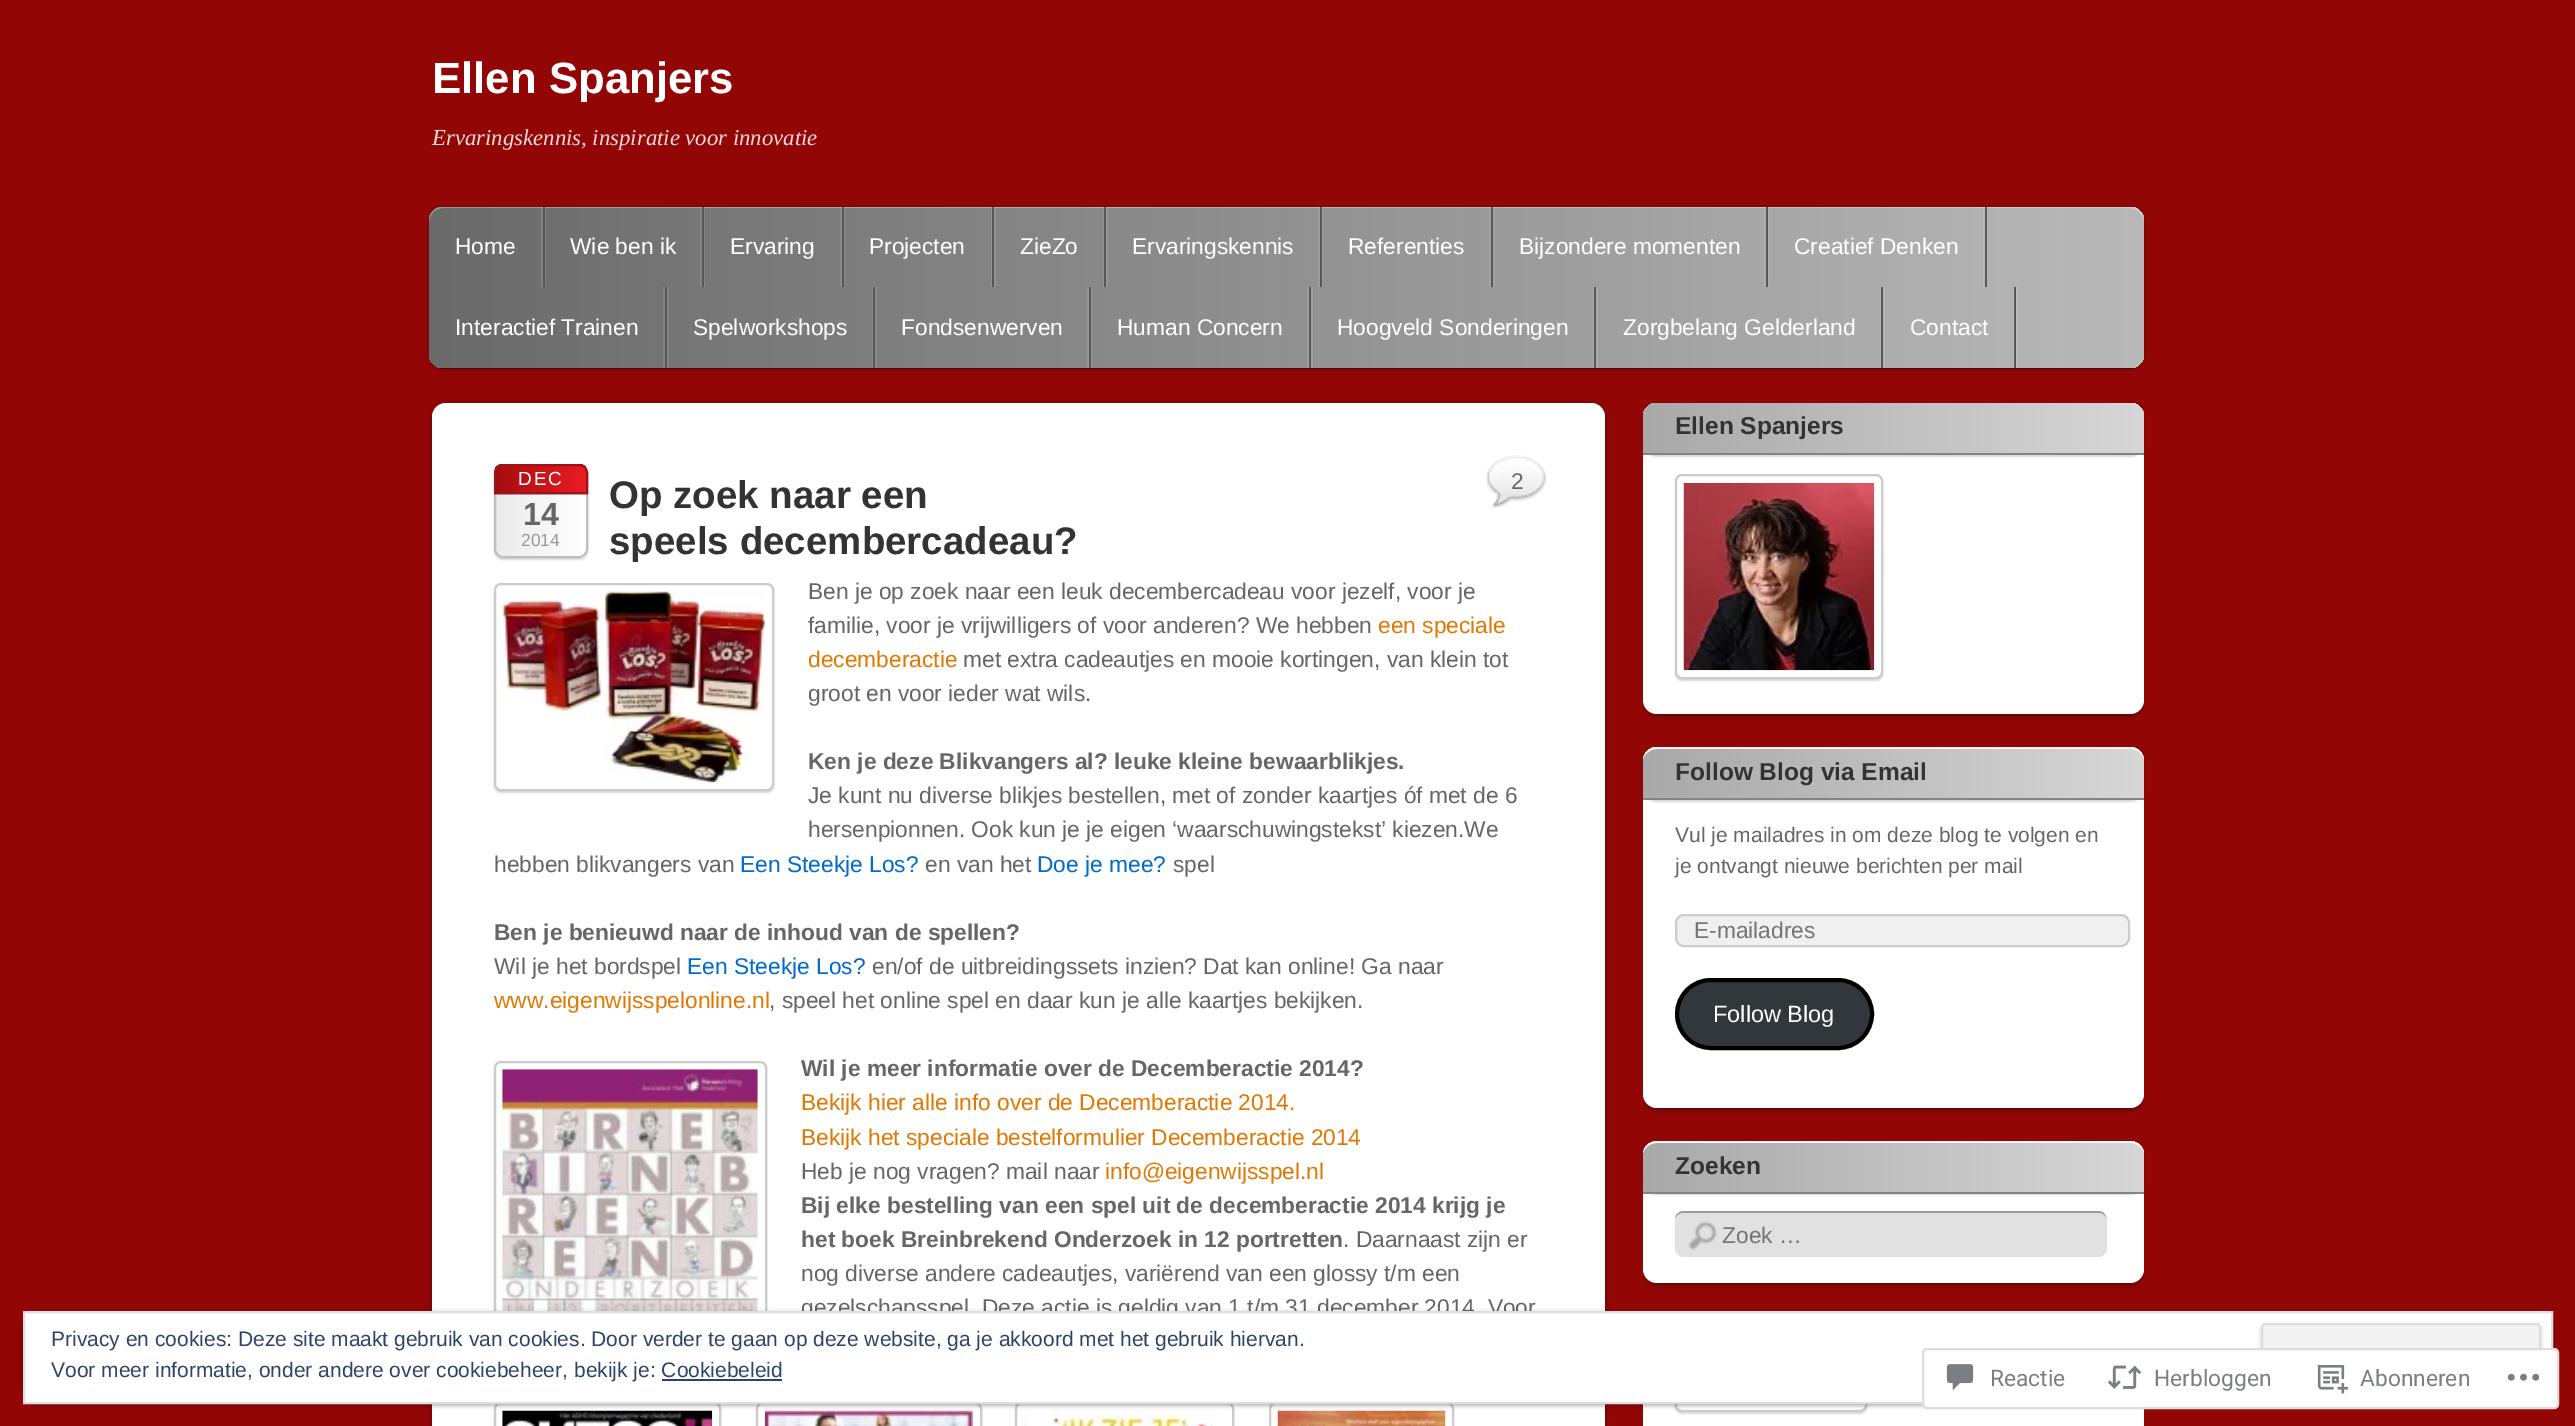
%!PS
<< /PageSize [2575 1426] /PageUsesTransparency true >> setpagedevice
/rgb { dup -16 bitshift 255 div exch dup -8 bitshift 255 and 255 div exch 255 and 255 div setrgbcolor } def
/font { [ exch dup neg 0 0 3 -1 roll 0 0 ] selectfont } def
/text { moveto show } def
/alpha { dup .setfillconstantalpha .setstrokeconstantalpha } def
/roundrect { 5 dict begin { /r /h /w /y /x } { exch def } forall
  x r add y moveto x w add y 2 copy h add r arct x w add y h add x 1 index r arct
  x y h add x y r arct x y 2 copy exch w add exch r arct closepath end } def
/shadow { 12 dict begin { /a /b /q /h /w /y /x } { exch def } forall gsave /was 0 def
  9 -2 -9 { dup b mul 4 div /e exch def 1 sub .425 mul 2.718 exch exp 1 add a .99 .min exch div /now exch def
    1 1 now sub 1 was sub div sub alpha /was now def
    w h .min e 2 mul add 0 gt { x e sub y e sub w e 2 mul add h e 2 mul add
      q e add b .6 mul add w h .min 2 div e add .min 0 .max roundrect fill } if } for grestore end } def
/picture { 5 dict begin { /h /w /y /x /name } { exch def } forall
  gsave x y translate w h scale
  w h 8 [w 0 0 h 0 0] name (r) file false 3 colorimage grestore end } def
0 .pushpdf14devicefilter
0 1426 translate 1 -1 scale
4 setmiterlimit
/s1 { /LiberationSans-Bold 43.75 font 16#FFFFFF rgb } def
/s2 { /LiberationSerif-Italic 22.75 font 16#EFDADA rgb } def
/s3 { /LiberationSans-Regular 22.75 font 16#FFFFFF rgb } def
/s4 { /LiberationSans-Bold 32 font 16#666666 rgb } def
/s5 { /LiberationSans-Regular 17.5 font 16#999999 rgb } def
/s6 { /LiberationSans-Bold 38.5 font 16#333333 rgb } def
/s7 { /LiberationSans-Regular 22.75 font 16#666666 rgb } def
/s8 { /LiberationSans-Regular 22.75 font 16#E07804 rgb } def
/s9 { /LiberationSans-Bold 22.75 font 16#666666 rgb } def
/s10 { /LiberationSans-Regular 22.75 font 16#026ACB rgb } def
/s11 { /LiberationSans-Bold 24.5 font 16#333333 rgb } def
/s12 { /LiberationSans-Regular 21 font 16#666666 rgb } def
/s13 { /LiberationSans-Regular 22.75 font 16#757575 rgb } def
/s14 { /LiberationSans-Regular 23.5 font 16#FFFFFF rgb } def
/s15 { /LiberationSans-Regular 21 font 16#2E4467 rgb } def
/s16 { /Roboto-Regular 22.75 font 16#7B7F85 rgb } def
16#930606 rgb
0 0 2575 1426 rectfill
s1
(Ellen Spanjers) 432 93 text
s2
(Ervaringskennis, inspiratie voor innovatie) 432 145 text
16#000000 rgb
429 208 1715 161 14 2.5 0.3 shadow
0.3 alpha
429 357 moveto 430 364 436 369 443 369 curveto 2130 369 lineto 2138 369 2144 363 2144 355 curveto 2144 219 lineto 2144 354 lineto 2144 361 2137 368 2130 368 curveto 443 368 lineto 436 368 430 363 429 357 curveto closepath fill
1 alpha
gsave 429 207 1715 161 14 roundrect clip newpath
<< /ShadingType 2 /ColorSpace /DeviceRGB /Coords [2144 287 429 287] /Extend [true true] /Function << /FunctionType 2 /Domain [0 1] /C0 [0.725 0.725 0.725] /C1 [0.416 0.416 0.416] /N 1 >> >> shfill grestore
0.3 alpha
16#FFFFFF rgb
443 208 moveto 2130 208 lineto 2137 208 2144 215 2144 222 curveto 2144 221 lineto 2144 213 2138 207 2130 207 curveto 443 207 lineto 435 207 429 213 429 221 curveto 429 222 lineto 429 215 435 208 443 208 curveto closepath fill
0.1 alpha
545 207 1 80 rectfill
541 207 2 80 rectfill
1 alpha
16#575757 rgb
543 207 2 80 rectfill
s3
(Home) 455 254 text
0.1 alpha
704 207 1 80 rectfill
700 207 2 80 rectfill
1 alpha
16#575757 rgb
702 207 2 80 rectfill
s3
(Wie ben ik) 570 254 text
0.1 alpha
844 207 1 80 rectfill
840 207 2 80 rectfill
1 alpha
16#575757 rgb
842 207 2 80 rectfill
s3
(Ervaring) 730 254 text
0.1 alpha
994 207 2 80 rectfill
991 207 1 80 rectfill
1 alpha
16#575757 rgb
992 207 2 80 rectfill
s3
(Projecten) 869 254 text
0.1 alpha
1106 207 2 80 rectfill
1103 207 1 80 rectfill
1 alpha
16#575757 rgb
1104 207 2 80 rectfill
s3
(ZieZo) 1020 254 text
0.1 alpha
1322 207 1 80 rectfill
1318 207 2 80 rectfill
1 alpha
16#575757 rgb
1320 207 2 80 rectfill
s3
(Ervaringskennis) 1132 254 text
0.1 alpha
1493 207 2 80 rectfill
1489 207 2 80 rectfill
1 alpha
16#575757 rgb
1491 207 2 80 rectfill
s3
(Referenties) 1348 254 text
0.1 alpha
1768 207 1 80 rectfill
1764 207 2 80 rectfill
1 alpha
16#575757 rgb
1766 207 2 80 rectfill
s3
(Bijzondere momenten) 1519 254 text
0.1 alpha
1987 207 1 80 rectfill
1983 207 2 80 rectfill
1 alpha
16#575757 rgb
1985 207 2 80 rectfill
s3
(Creatief Denken) 1794 254 text
16#838383 rgb
431 368 moveto 669 368 lineto 669 287 lineto 667 287 lineto 667 368 lineto closepath fill
663 287 2 81 rectfill
16#575757 rgb
665 287 2 81 rectfill
s3
(Interactief Trainen) 455 335 text
16#8C8C8C rgb
669 368 moveto 877 368 lineto 877 287 lineto 875 287 lineto 875 368 lineto closepath fill
16#8B8B8B rgb
872 287 1 81 rectfill
16#575757 rgb
873 287 2 81 rectfill
s3
(Spelworkshops) 693 335 text
16#949494 rgb
877 368 moveto 1092 368 lineto 1092 287 lineto 1090 287 lineto 1090 368 lineto closepath fill
1087 287 2 81 rectfill
16#575757 rgb
1089 287 2 81 rectfill
s3
(Fondsenwerven) 901 335 text
16#9E9E9E rgb
1092 368 moveto 1313 368 lineto 1313 287 lineto 1311 287 lineto 1311 368 lineto closepath fill
16#9D9D9D rgb
1307 287 2 81 rectfill
16#575757 rgb
1309 287 2 81 rectfill
s3
(Human Concern) 1117 335 text
16#AAAAAA rgb
1313 368 moveto 1598 368 lineto 1598 287 lineto 1596 287 lineto 1596 368 lineto closepath fill
1593 287 1 81 rectfill
16#575757 rgb
1594 287 2 81 rectfill
s3
(Hoogveld Sonderingen) 1337 335 text
16#B5B5B5 rgb
1598 368 moveto 1885 368 lineto 1885 287 lineto 1883 287 lineto 1883 368 lineto closepath fill
1880 287 1 81 rectfill
16#575757 rgb
1881 287 2 81 rectfill
s3
(Zorgbelang Gelderland) 1623 335 text
16#BBBBBB rgb
1885 368 moveto 2018 368 lineto 2018 287 lineto 2016 287 lineto 2016 368 lineto closepath fill
2013 287 1 81 rectfill
16#575757 rgb
2014 287 2 81 rectfill
s3
(Contact) 1910 335 text
16#000000 rgb
432 404 1173 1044 14 2.5 0.4 shadow
16#FFFFFF rgb
432 403 1173 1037 14 roundrect fill
16#000000 rgb
494 466 94 94 9 1 0.15 shadow
gsave
494 464 94 94 9 roundrect clip newpath
gsave 495 464 moveto 586 464 lineto 586 558 lineto 495 558 lineto closepath clip newpath
<< /ShadingType 2 /ColorSpace /DeviceRGB /Coords [586 511 495 511] /Extend [true true] /Function << /FunctionType 2 /Domain [0 1] /C0 [1 1 1] /C1 [0.925 0.922 0.922] /N 1 >> >> shfill grestore
grestore
16#BEBEBE rgb
2 setlinewidth
495 465 92 92 8 roundrect stroke
0.2 alpha
16#000000 rgb
494 494 94 1 rectfill
gsave
503 464 moveto 579 464 lineto 584 464 588 468 588 473 curveto 588 494 lineto 494 494 lineto 494 473 lineto 494 468 498 464 503 464 curveto closepath clip newpath
1 alpha
gsave 495 464 moveto 586 464 lineto 586 492 lineto 495 492 lineto closepath clip newpath
<< /ShadingType 2 /ColorSpace /DeviceRGB /Coords [586 479 495 479] /Extend [true true] /Function << /FunctionType 2 /Domain [0 1] /C0 [0.922 0.11 0.141] /C1 [0.639 0.047 0.063] /N 1 >> >> shfill grestore
grestore
1 alpha
16#A11216 rgb
503 465 moveto 579 465 lineto 583.5 465 587 468.5 587 473 curveto 587 493 lineto 495 493 lineto 495 473 lineto 495 468.5 498.5 465 503 465 curveto closepath stroke
/LiberationSans-Regular 19 font
16#FFFFFF rgb
518 485 moveto 2 0 (DEC) ashow
s4
(14) 523 525 text
s5
(2014) 521 546 text
s6
(Op zoek naar een) 609 508 text
(speels decembercadeau?) 609 554 text
(pic1.raw) 1486 455 61 54 picture
s7
(2) 1511 489 text
16#000000 rgb
494 585 280 208 7 1 0.15 shadow
16#FFFFFF rgb
495 584 278 206 6 roundrect gsave fill grestore
16#CCCCCC rgb
stroke
(pic2.raw) 502 591 263 192 picture
s7
(Ben je op zoek naar een leuk decembercadeau voor jezelf, voor je) 808 599 text
(familie, voor je vrijwilligers of voor anderen? We hebben) 808 633 text
s8
(een speciale) 1378 633 text
(decemberactie) 808 667 text
s7
(met extra cadeautjes en mooie kortingen, van klein tot) 963 667 text
(groot en voor ieder wat wils.) 808 701 text
s9
(Ken je deze Blikvangers al? leuke kleine bewaarblikjes.) 808 769 text
s7
(Je kunt nu diverse blikjes bestellen, met of zonder kaartjes óf met de 6) 808 803 text
(hersenpionnen. Ook kun je je eigen ‘waarschuwingstekst’ kiezen.We) 808 837 text
(hebben blikvangers van) 494 872 text
s10
(Een Steekje Los?) 740 872 text
s7
(en van het) 925 872 text
s10
(Doe je mee?) 1037 872 text
s7
(spel) 1173 872 text
s9
(Ben je benieuwd naar de inhoud van de spellen?) 494 940 text
s7
(Wil je het bordspel) 494 974 text
s10
(Een Steekje Los?) 687 974 text
s7
(en/of de uitbreidingssets inzien? Dat kan online! Ga naar) 872 974 text
s8
(www.eigenwijsspelonline.nl) 494 1008 text
s7
(, speel het online spel en daar kun je alle kaartjes bekijken.) 769 1008 text
16#000000 rgb
494 1062 273 279 7 1 0.15 shadow
16#FFFFFF rgb
495 1062 271 276 6 roundrect gsave fill grestore
16#CCCCCC rgb
stroke
(pic3.raw) 502 1069 256 242 picture
s9
(Wil je meer informatie over de Decemberactie 2014?) 801 1076 text
s8
(Bekijk hier alle info over de Decemberactie 2014.) 801 1110 text
(Bekijk het speciale bestelformulier Decemberactie 2014) 801 1145 text
s7
(Heb je nog vragen? mail naar) 801 1179 text
s8
(info@eigenwijsspel.nl) 1105 1179 text
s9
(Bij elke bestelling van een spel uit de decemberactie 2014 krijg je) 801 1213 text
(het boek Breinbrekend Onderzoek in 12 portretten) 801 1247 text
s7
(. Daarnaast zijn er) 1343 1247 text
(nog diverse andere cadeautjes, variërend van een glossy t/m een) 801 1281 text
(gezelschapsspel. Deze actie is geldig van 1 t/m 31 december 2014. Voor) 801 1315 text
gsave
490 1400 moveto 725 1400 lineto 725 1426 lineto 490 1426 lineto closepath 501 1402 moveto 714 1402 lineto 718 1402 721 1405 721 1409 curveto 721 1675 lineto 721 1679 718 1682 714 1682 curveto 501 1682 lineto 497 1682 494 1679 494 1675 curveto 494 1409 lineto 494 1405 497 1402 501 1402 curveto closepath eoclip newpath
16#000000 rgb
494 1404 227 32 7 1 0.15 shadow
grestore
16#CCCCCC rgb
495 1403 225 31 6 roundrect stroke
(pic4.raw) 502 1410 211 16 picture
16#000000 rgb
756 1404 226 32 7 1 0.15 shadow
16#FFFFFF rgb
757 1403 224 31 6 roundrect gsave fill grestore
16#CCCCCC rgb
stroke
(pic5.raw) 764 1410 209 16 picture
16#000000 rgb
1015 1404 219 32 7 1 0.15 shadow
16#FFFFFF rgb
1016 1403 217 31 6 roundrect gsave fill grestore
16#CCCCCC rgb
stroke
(pic6.raw) 1024 1411 189 15 picture
1270 1403 183 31 6 roundrect stroke
(pic7.raw) 1277 1410 169 16 picture
gsave
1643 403 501 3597 rectclip
16#000000 rgb
1643 404 501 312 14 2.5 0.4 shadow
grestore
16#FFFFFF rgb
1643 403 501 311 14 roundrect fill
16#000000 rgb
1643 403 501 54 14 1 0.15 shadow
gsave
1643 403 501 311 14 roundrect clip newpath
gsave 1657 401 moveto 2130 401 lineto 2137.5 401 2144 407.5 2144 415 curveto 2144 455 lineto 1643 455 lineto 1643 415 lineto 1643 407.5 1649.5 401 1657 401 curveto closepath clip newpath
<< /ShadingType 2 /ColorSpace /DeviceRGB /Coords [2144 428 1643 428] /Extend [true true] /Function << /FunctionType 2 /Domain [0 1] /C0 [0.843 0.843 0.843] /C1 [0.663 0.663 0.663] /N 1 >> >> shfill grestore
grestore
16#848484 rgb
1643 453 501 2 rectfill
s11
(Ellen Spanjers) 1675 434 text
16#000000 rgb
1675 476 208 205 7 1 0.15 shadow
16#FFFFFF rgb
1676 475 206 203 6 roundrect gsave fill grestore
16#CCCCCC rgb
stroke
(pic8.raw) 1683 483 192 188 picture
gsave
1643 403 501 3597 rectclip
16#000000 rgb
1643 751 501 359 14 2.5 0.4 shadow
grestore
16#FFFFFF rgb
1643 749 501 359 14 roundrect fill
16#000000 rgb
1643 749 501 53 14 1 0.15 shadow
gsave 1657 747 moveto 2130 747 lineto 2137.5 747 2144 753.5 2144 761 curveto 2144 800 lineto 1643 800 lineto 1643 761 lineto 1643 753.5 1649.5 747 1657 747 curveto closepath clip newpath
<< /ShadingType 2 /ColorSpace /DeviceRGB /Coords [2144 774 1643 774] /Extend [true true] /Function << /FunctionType 2 /Domain [0 1] /C0 [0.843 0.843 0.843] /C1 [0.663 0.663 0.663] /N 1 >> >> shfill grestore
16#F5F5F5 rgb
1657 749 moveto 1651 749 1645 753 1643 759 curveto 1643 754 1650 747 1655 747 curveto 2132 747 lineto 2137 747 2144 754 2144 759 curveto 2142 753 2136 749 2130 749 curveto closepath fill
16#848484 rgb
1643 798 501 2 rectfill
s11
(Follow Blog via Email) 1675 780 text
s12
(Vul je mailadres in om deze blog te volgen en) 1675 842 text
(je ontvangt nieuwe berichten per mail) 1675 873 text
16#F0F0F0 rgb
1676 915 453 31 8 roundrect gsave fill grestore
16#CCCCCC rgb
stroke
s13
(E-mailadres) 1694 938 text
16#32373C rgb
1677 980 195 68 34 roundrect gsave fill grestore
16#000000 rgb
4 setlinewidth
stroke
s14
(Follow Blog) 1713 1022 text
gsave
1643 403 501 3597 rectclip
16#000000 rgb
1643 1145 501 140 14 2.5 0.4 shadow
grestore
1643 1143 501 140 14 roundrect fill
16#000000 rgb
1643 1143 501 52 14 1 0.15 shadow
gsave 1657 1141 moveto 2130 1141 lineto 2137.5 1141 2144 1147.5 2144 1155 curveto 2144 1194 lineto 1643 1194 lineto 1643 1155 lineto 1643 1147.5 1649.5 1141 1657 1141 curveto closepath clip newpath
<< /ShadingType 2 /ColorSpace /DeviceRGB /Coords [2144 1167 1643 1167] /Extend [true true] /Function << /FunctionType 2 /Domain [0 1] /C0 [0.843 0.843 0.843] /C1 [0.663 0.663 0.663] /N 1 >> >> shfill grestore
16#F5F5F5 rgb
1657 1141 moveto 1651 1141 1643 1146 1643 1153 curveto 1645 1147 1651 1143 1657 1143 curveto 2130 1143 lineto 2136 1143 2142 1147 2144 1153 curveto 2144 1146 2136 1141 2130 1141 curveto closepath fill
16#848484 rgb
1643 1192 501 2 rectfill
s11
(Zoeken) 1675 1174 text
16#999999 rgb
1684 1211 moveto 1679 1211 1675 1215 1675 1219 curveto 1676 1216 1679 1213 1684 1213 curveto 2098 1213 lineto 2103 1213 2107 1217 2107 1222 curveto 2107 1216 2104 1211 2098 1211 curveto closepath fill
16#E1E1E1 rgb
1675 1213 432 44 9 roundrect fill
(pic9.raw) 1688 1221 29 29 picture
s13
(Zoek …) 1722 1243 text
16#FFFFFF rgb
1643 1404 501 22 rectfill
16#000000 rgb
1675 1346 192 68 7 1 0.15 shadow
16#FFFFFF rgb
1676 1345 190 66 6 roundrect gsave fill grestore
16#CCCCCC rgb
2 setlinewidth
stroke
16#000000 rgb
23 1313 2530 92 14 2.5 0.4 shadow
16#FFFFFF rgb
24 1312 moveto 2552 1312 lineto 2552 1403 lineto 24 1403 lineto closepath gsave fill grestore
16#DEDEDE rgb
stroke
s15
(Privacy en cookies: Deze site maakt gebruik van cookies. Door verder te gaan op deze website, ga je akkoord met het gebruik hiervan.) 51 1346 text
16#000000 rgb
2261 1325 280 68 5 2 0.2 shadow
16#F3F3F3 rgb
2262 1324 278 66 4 roundrect gsave fill grestore
16#DEDEDE rgb
stroke
s15
(Voor meer informatie, onder andere over cookiebeheer, bekijk je: Cookiebeleid) 51 1377 text
662 1379 120 2 rectfill
0.98 alpha
16#FFFFFF rgb
1922 1348 637 61 5 roundrect fill
16#DCDCDE rgb
1923 1349 635 59 4 roundrect stroke
1 alpha
(pic10.raw) 1946 1364 28 27 picture
s16
(Reactie) 1990 1386 text
(pic11.raw) 2107 1365 35 24 picture
(Herbloggen) 2154 1386 text
(pic12.raw) 2317 1365 32 29 picture
(Abonneren) 2360 1386 text
(pic13.raw) 2507 1373 33 8 picture
.poppdf14devicefilter showpage
